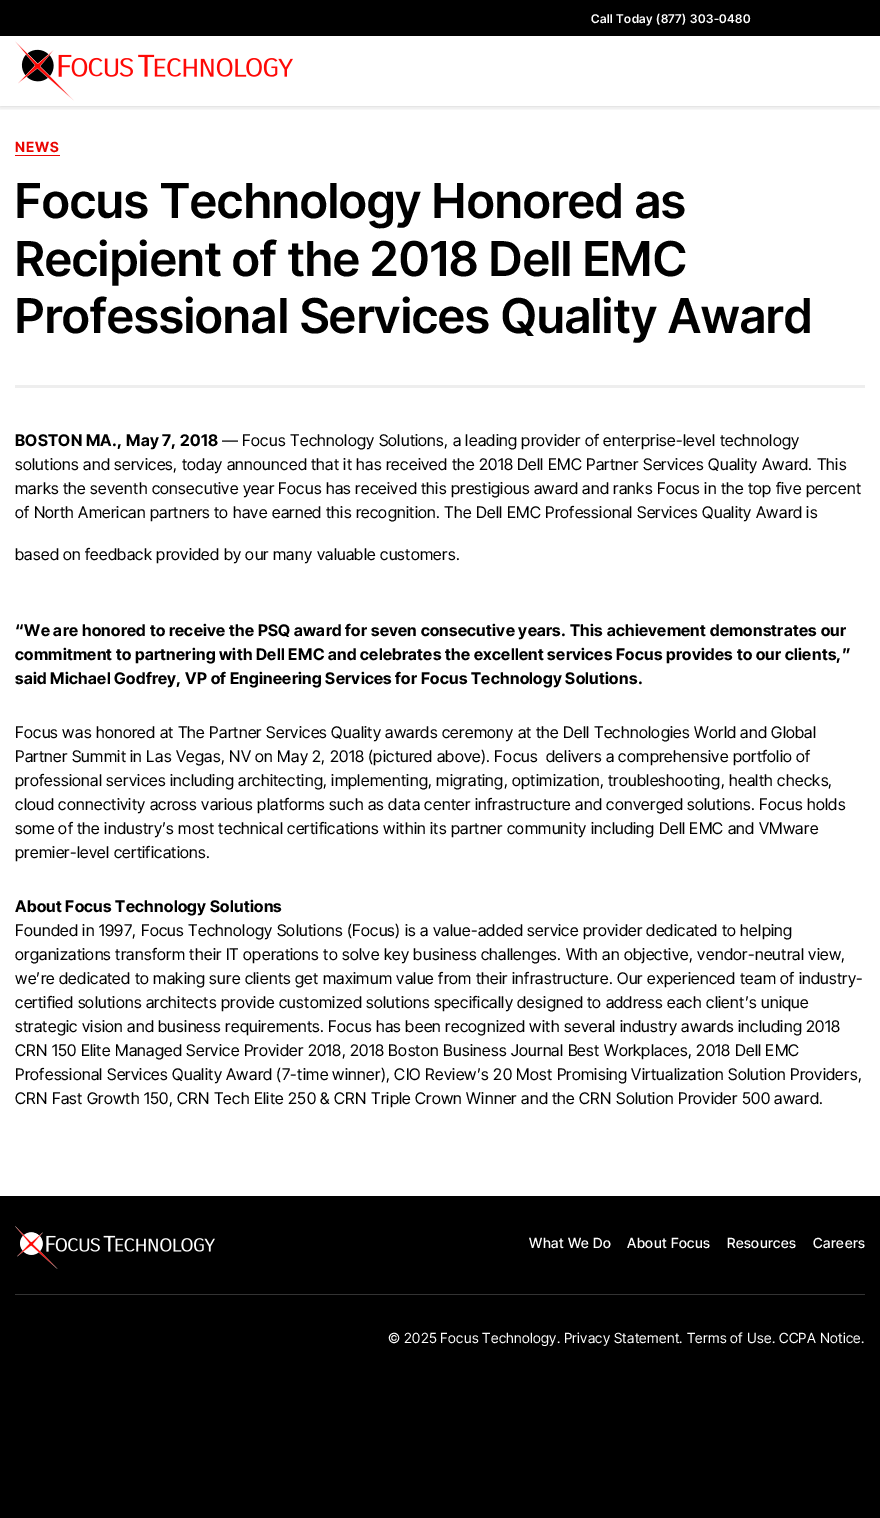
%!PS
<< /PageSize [880 1518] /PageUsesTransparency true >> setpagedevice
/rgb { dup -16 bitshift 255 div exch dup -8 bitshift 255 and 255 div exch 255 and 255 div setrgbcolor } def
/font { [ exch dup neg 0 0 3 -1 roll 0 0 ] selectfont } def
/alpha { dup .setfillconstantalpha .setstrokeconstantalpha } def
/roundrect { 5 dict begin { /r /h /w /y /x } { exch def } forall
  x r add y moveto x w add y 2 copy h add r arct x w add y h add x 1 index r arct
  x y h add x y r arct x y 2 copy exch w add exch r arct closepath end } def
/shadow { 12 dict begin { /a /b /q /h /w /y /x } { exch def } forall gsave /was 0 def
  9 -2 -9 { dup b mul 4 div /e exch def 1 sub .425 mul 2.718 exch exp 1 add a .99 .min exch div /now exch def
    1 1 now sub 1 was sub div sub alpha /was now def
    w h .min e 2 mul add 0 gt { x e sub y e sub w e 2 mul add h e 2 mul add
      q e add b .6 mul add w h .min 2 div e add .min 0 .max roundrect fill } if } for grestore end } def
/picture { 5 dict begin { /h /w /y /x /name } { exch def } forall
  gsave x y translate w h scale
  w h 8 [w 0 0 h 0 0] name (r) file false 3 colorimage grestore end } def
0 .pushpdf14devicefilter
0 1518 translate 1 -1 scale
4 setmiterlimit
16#000000 rgb
0 0 880 1518 rectfill
16#FFFFFF rgb
0 36 880 1160 rectfill
gsave
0 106 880 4 rectclip
16#000000 rgb
0 0 880 106 0 3.5 0.2 shadow
grestore
/InterTight-SemiBold 12 font
591 23 moveto 0.5 0 (Call Today \(877\) 303-0480) ashow
(pic1.raw) 15 41 278 60 picture
/InterTight-Bold 14 font
16#E90501 rgb
15 152 moveto 1 0 (NEWS) ashow
15 155 45 1 rectfill
/InterTight-SemiBold 48 font
16#000000 rgb
15 218 moveto 0.5 0 (Focus Technology Honored as) ashow
15 276 moveto 0.5 0 (Recipient of the 2018 Dell EMC) ashow
15 333 moveto 0.5 0 (Professional Services Quality Award) ashow
16#EEEEEE rgb
15 385 850 3 rectfill
/InterTight-Bold 16 font
16#000000 rgb
15 446 moveto 0.32 0 (BOSTON MA., May 7, 2018) ashow
/InterTight-Regular 16 font
222 446 moveto 0.32 0 (— Focus Technology Solutions, a leading provider of enterprise-level technology) ashow
15 470 moveto 0.32 0 (solutions and services, today announced that it has received the 2018 Dell EMC Partner Services Quality Award. This) ashow
15 494 moveto 0.32 0 (marks the seventh consecutive year Focus has received this prestigious award and ranks Focus in the top five percent) ashow
15 518 moveto 0.32 0 (of North American partners to have earned this recognition. The Dell EMC Professional Services Quality Award is) ashow
15 560 moveto 0.32 0 (based on feedback provided by our many valuable customers.) ashow
/InterTight-Bold 16 font
15 636 moveto 0.32 0 (“We are honored to receive the PSQ award for seven consecutive years. This achievement demonstrates our) ashow
15 660 moveto 0.32 0 (commitment to partnering with Dell EMC and celebrates the excellent services Focus provides to our clients,”) ashow
15 684 moveto 0.32 0 (said Michael Godfrey, VP of Engineering Services for Focus Technology Solutions.) ashow
/InterTight-Regular 16 font
15 738 moveto 0.32 0 (Focus was honored at The Partner Services Quality awards ceremony at the Dell Technologies World and Global) ashow
15 762 moveto 0.32 0 (Partner Summit in Las Vegas, NV on May 2, 2018 \(pictured above\). Focus  delivers a comprehensive portfolio of) ashow
15 786 moveto 0.32 0 (professional services including architecting, implementing, migrating, optimization, troubleshooting, health checks,) ashow
15 810 moveto 0.32 0 (cloud connectivity across various platforms such as data center infrastructure and converged solutions. Focus holds) ashow
15 834 moveto 0.32 0 (some of the industry’s most technical certifications within its partner community including Dell EMC and VMware) ashow
15 858 moveto 0.32 0 (premier-level certifications.) ashow
/InterTight-Bold 16 font
15 912 moveto 0.32 0 (About Focus Technology Solutions) ashow
/InterTight-Regular 16 font
15 936 moveto 0.32 0 (Founded in 1997, Focus Technology Solutions \(Focus\) is a value-added service provider dedicated to helping) ashow
15 960 moveto 0.32 0 (organizations transform their IT operations to solve key business challenges. With an objective, vendor-neutral view,) ashow
15 984 moveto 0.32 0 (we’re dedicated to making sure clients get maximum value from their infrastructure. Our experienced team of industry-) ashow
15 1008 moveto 0.32 0 (certified solutions architects provide customized solutions specifically designed to address each client’s unique) ashow
15 1032 moveto 0.32 0 (strategic vision and business requirements. Focus has been recognized with several industry awards including 2018) ashow
15 1056 moveto 0.32 0 (CRN 150 Elite Managed Service Provider 2018, 2018 Boston Business Journal Best Workplaces, 2018 Dell EMC) ashow
15 1080 moveto 0.32 0 (Professional Services Quality Award \(7-time winner\), CIO Review’s 20 Most Promising Virtualization Solution Providers,) ashow
15 1104 moveto 0.32 0 (CRN Fast Growth 150, CRN Tech Elite 250 & CRN Triple Crown Winner and the CRN Solution Provider 500 award.) ashow
(pic2.raw) 15 1226 200 43 picture
/InterTight-Medium 14 font
16#FFFFFF rgb
529 1248 moveto 0.5 0 (What We Do) ashow
627 1248 moveto 0.5 0 (About Focus) ashow
727 1248 moveto 0.5 0 (Resources) ashow
813 1248 moveto 0.5 0 (Careers) ashow
16#333333 rgb
15 1294 850 1 rectfill
/InterTight-Regular 14 font
16#FFFFFF rgb
388 1343 moveto 0.32 0 (© 2025 Focus Technology. Privacy Statement. Terms of Use. CCPA Notice.) ashow
.poppdf14devicefilter showpage
